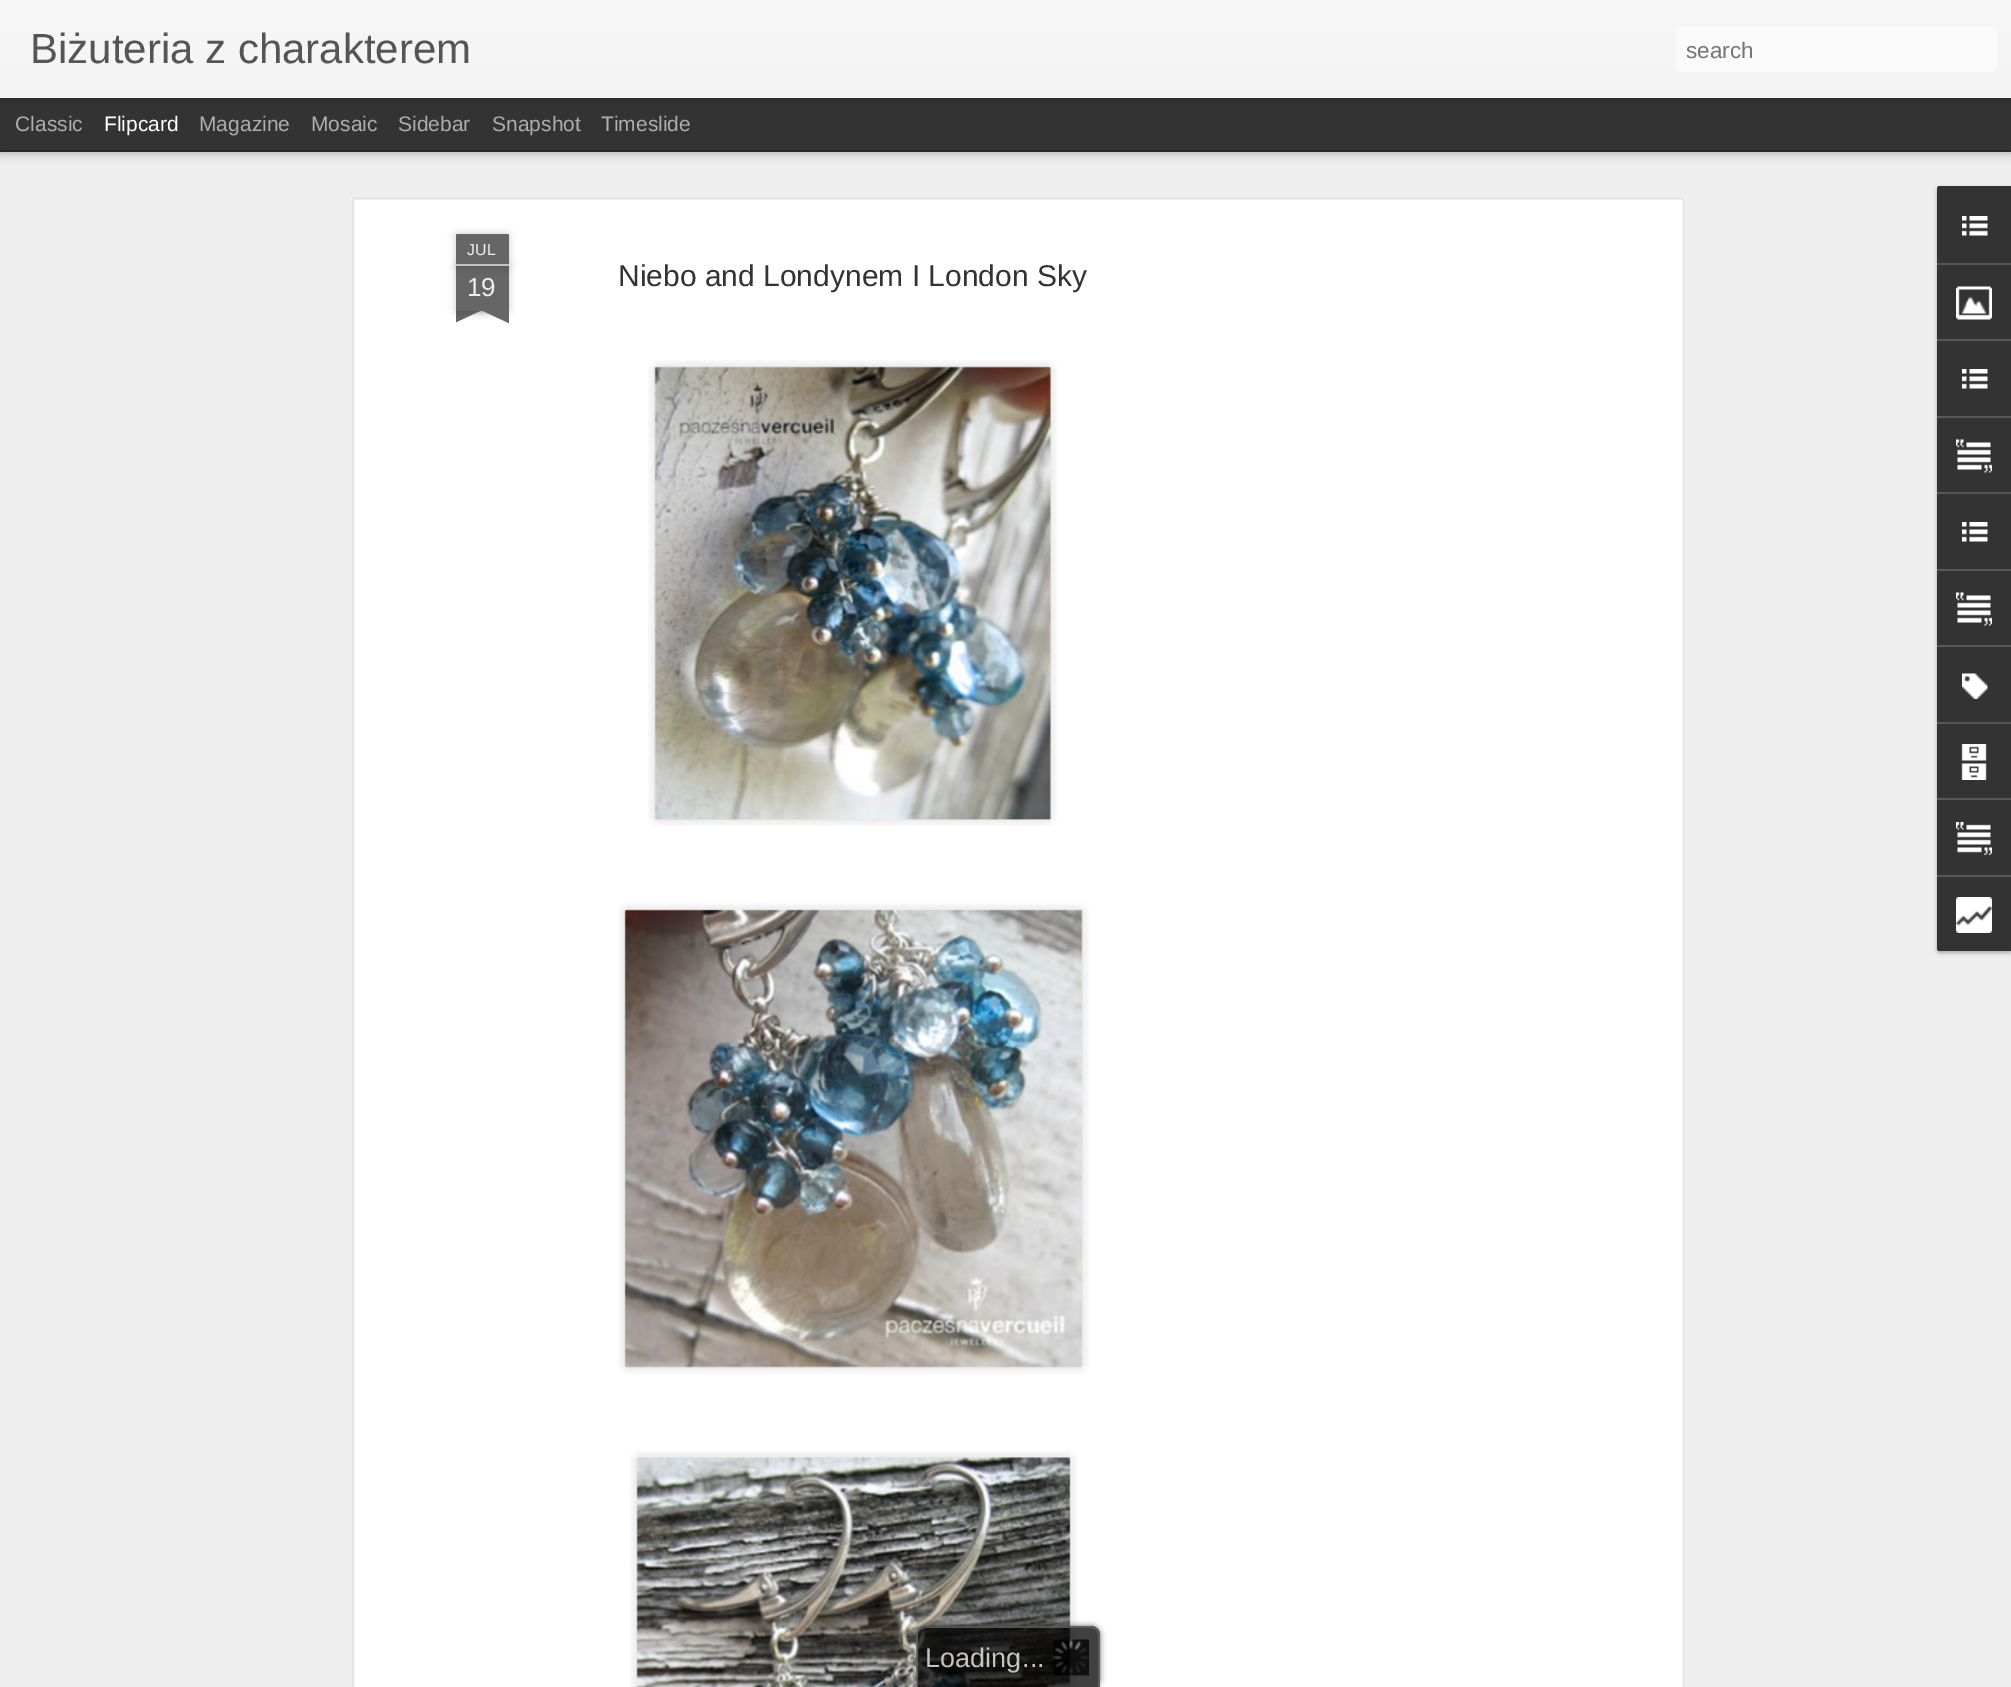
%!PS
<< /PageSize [2011 1687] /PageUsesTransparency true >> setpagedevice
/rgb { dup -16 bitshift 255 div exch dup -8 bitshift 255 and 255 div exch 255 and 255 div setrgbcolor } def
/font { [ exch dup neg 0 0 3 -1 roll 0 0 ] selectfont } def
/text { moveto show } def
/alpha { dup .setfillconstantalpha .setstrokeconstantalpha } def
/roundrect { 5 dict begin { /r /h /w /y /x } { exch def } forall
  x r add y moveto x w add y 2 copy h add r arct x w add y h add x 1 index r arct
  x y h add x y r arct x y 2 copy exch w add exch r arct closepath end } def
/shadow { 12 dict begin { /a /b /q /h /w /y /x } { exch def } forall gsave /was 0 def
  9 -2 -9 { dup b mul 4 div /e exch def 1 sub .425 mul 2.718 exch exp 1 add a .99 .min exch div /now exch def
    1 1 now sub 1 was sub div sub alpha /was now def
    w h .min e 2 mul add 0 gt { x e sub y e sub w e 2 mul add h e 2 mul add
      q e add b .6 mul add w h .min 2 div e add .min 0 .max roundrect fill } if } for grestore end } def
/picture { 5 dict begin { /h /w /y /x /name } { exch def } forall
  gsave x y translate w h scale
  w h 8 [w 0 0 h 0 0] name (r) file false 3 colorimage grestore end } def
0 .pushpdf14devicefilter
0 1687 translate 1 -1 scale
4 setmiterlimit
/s1 { /LiberationSans-Regular 42 font 16#555555 rgb } def
/s2 { /LiberationSans-Regular 22.5 font 16#757575 rgb } def
/s3 { /LiberationSans-Regular 21 font 16#ADADAD rgb } def
/s4 { /LiberationSans-Regular 21 font 16#FFFFFF rgb } def
/s5 { /LiberationSans-Regular 16 font 16#EEEEEE rgb } def
/s6 { /LiberationSans-Regular 26 font 16#EEEEEE rgb } def
/s7 { /LiberationSans-Regular 30 font 16#333333 rgb } def
/s8 { /LiberationSans-Regular 27 font 16#C4C4C3 rgb } def
16#333333 rgb
0 0 2011 1687 rectfill
16#EEEEEE rgb
0 152 2011 1535 rectfill
16#000000 rgb
0 98 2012 52 0 6 0.5 shadow
16#333333 rgb
0 98 2011 52 rectfill
16#000000 rgb
0 0 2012 98 0 4 0.3 shadow
gsave 0 0 moveto 2011 0 lineto 2011 98 lineto 0 98 lineto closepath clip newpath
<< /ShadingType 2 /ColorSpace /DeviceRGB /Coords [0 0 0 98] /Extend [true true] /Function << /FunctionType 2 /Domain [0 1] /C0 [0.969 0.969 0.969] /C1 [0.957 0.957 0.957] /N 1 >> >> shfill grestore
s1
(Biżuteria z charakterem) 30 63 text
16#FAFAFA rgb
1676 27 321 45 5 roundrect fill
s2
(search) 1686 58 text
s3
(Classic) 15 131 text
s4
(Flipcard) 104 131 text
s3
(Magazine) 199 131 text
(Mosaic) 311 131 text
(Sidebar) 398 131 text
(Snapshot) 492 131 text
(Timeslide) 601 131 text
16#FFFFFF rgb
351 197 1335 1490 rectfill
(pic1.raw) 351 197 1335 1490 picture
16#000000 rgb
456 266 53 45 0 4 0.2 shadow
16#666666 rgb
456 266 53 45 rectfill
16#000000 rgb
456 234 53 32 1.5 4 0.2 shadow
16#666666 rgb
457.5 234 moveto 507.5 234 lineto 508.5 234 509 234.5 509 235.5 curveto 509 266 lineto 456 266 lineto 456 235.5 lineto 456 234.5 456.5 234 457.5 234 curveto closepath fill
16#C2C2C2 rgb
456 264 53 2 rectfill
s5
(JUL) 467 255 text
s6
(19) 467 296 text
gsave
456 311 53 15 rectclip
16#000000 rgb
443 296 75 15 0 4 0.2 shadow
grestore
gsave
456 311 53 15 rectclip
16#666666 rgb
442 312 moveto 510 280 lineto 516 294 lineto 448 326 lineto closepath fill
grestore
gsave
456 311 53 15 rectclip
16#000000 rgb
447 296 75 15 0 4 0.2 shadow
grestore
gsave
456 311 53 15 rectclip
16#666666 rgb
453 280 moveto 521 312 lineto 515 326 lineto 447 294 lineto closepath fill
grestore
s7
(Niebo and Londynem I London Sky) 618 286 text
(pic2.raw) 648 360 409 466 picture
(pic3.raw) 654 366 397 454 picture
(pic4.raw) 618 903 471 471 picture
(pic5.raw) 624 909 459 459 picture
(pic6.raw) 630 1451 447 236 picture
(pic7.raw) 636 1457 435 230 picture
16#000000 rgb
1937 188 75 765 3 2 0.3 shadow
16#333333 rgb
1940 186 moveto 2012 186 lineto 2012 951 lineto 1940 951 lineto 1938.5 951 1937 949.5 1937 948 curveto 1937 189 lineto 1937 187.5 1938.5 186 1940 186 curveto closepath fill
1940 186 moveto 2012 186 lineto 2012 263 lineto 1937 263 lineto 1937 189 lineto 1937 187.5 1938.5 186 1940 186 curveto closepath fill
(pic8.raw) 1962 216 26 20 picture
16#585858 rgb
1937 263 74 2 rectfill
(pic9.raw) 1956 286 36 34 picture
1937 339 74 2 rectfill
(pic8.raw) 1962 369 26 20 picture
1937 416 74 2 rectfill
(pic10.raw) 1956 439 36 34 picture
1937 492 74 2 rectfill
(pic8.raw) 1962 522 26 20 picture
1937 569 74 2 rectfill
(pic10.raw) 1956 592 36 34 picture
1937 645 74 2 rectfill
(pic11.raw) 1962 673 26 26 picture
1937 722 74 2 rectfill
(pic12.raw) 1961 744 26 36 picture
1937 798 74 2 rectfill
(pic13.raw) 1956 822 36 33 picture
16#333333 rgb
1937 875 moveto 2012 875 lineto 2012 951 lineto 1940 951 lineto 1938.5 951 1937 949.5 1937 948 curveto closepath fill
16#585858 rgb
1937 875 74 2 rectfill
(pic14.raw) 1956 897 36 36 picture
gsave
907 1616 moveto 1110 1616 lineto 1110 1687 lineto 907 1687 lineto closepath 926 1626 moveto 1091 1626 lineto 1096 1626 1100 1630 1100 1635 curveto 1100 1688 lineto 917 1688 lineto 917 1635 lineto 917 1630 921 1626 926 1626 curveto closepath eoclip newpath
16#333333 rgb
917 1626 183 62 9 3 0.75 shadow
grestore
0.75 alpha
16#000000 rgb
926 1626 moveto 1091 1626 lineto 1096 1626 1100 1630 1100 1635 curveto 1100 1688 lineto 917 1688 lineto 917 1635 lineto 917 1630 921 1626 926 1626 curveto closepath fill
16#666666 rgb
926 1626 moveto 1090 1626 lineto 1095 1626 1100 1630 1100 1635 curveto 1100 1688 lineto 916 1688 lineto 916 1635 lineto 916 1630 921 1626 926 1626 curveto closepath 926 1628 moveto 1090 1628 lineto 1095 1628 1098 1631 1098 1635 curveto 1098 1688 lineto 918 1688 lineto 918 1635 lineto 918 1631 921 1628 926 1628 curveto closepath eofill
1 alpha
(pic15.raw) 1053 1639 36 37 picture
s8
(Loading) 925 1667 text
(...) 1022 1667 text
.poppdf14devicefilter showpage
